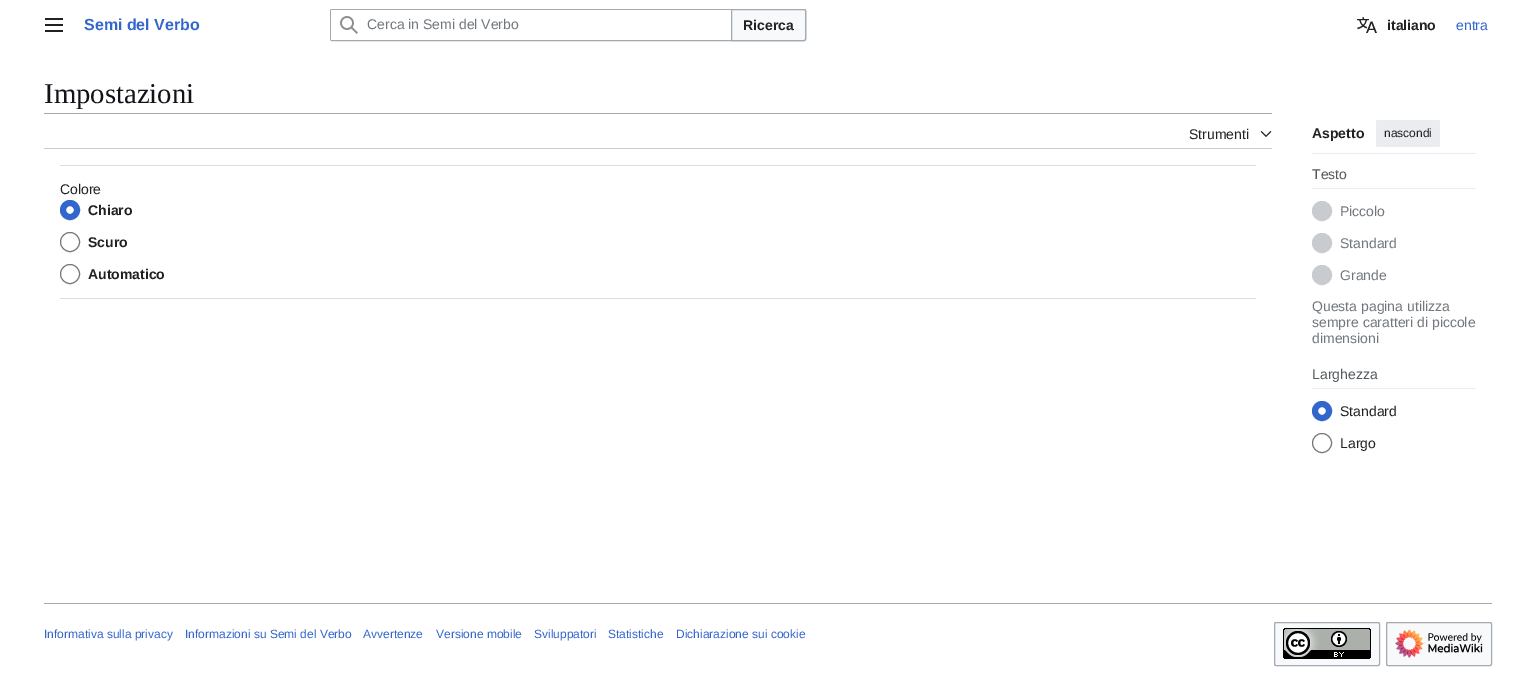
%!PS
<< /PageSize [1536 685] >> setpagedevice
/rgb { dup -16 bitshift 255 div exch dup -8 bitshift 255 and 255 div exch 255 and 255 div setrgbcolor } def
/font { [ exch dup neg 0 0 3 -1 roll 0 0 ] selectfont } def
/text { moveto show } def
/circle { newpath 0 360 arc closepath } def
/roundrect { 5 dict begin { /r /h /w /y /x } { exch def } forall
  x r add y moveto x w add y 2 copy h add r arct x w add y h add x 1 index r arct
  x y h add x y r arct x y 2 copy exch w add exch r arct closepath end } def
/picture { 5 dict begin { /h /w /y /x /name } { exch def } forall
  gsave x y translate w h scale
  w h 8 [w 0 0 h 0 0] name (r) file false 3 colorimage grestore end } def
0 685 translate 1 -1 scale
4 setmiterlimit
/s1 { /LiberationSans-Bold 16 font 16#3366CC rgb } def
/s2 { /LiberationSans-Regular 14 font 16#72777D rgb } def
/s3 { /LiberationSans-Bold 14 font 16#202122 rgb } def
/s4 { /LiberationSans-Regular 14 font 16#3366CC rgb } def
/s5 { /LiberationSerif-Regular 28.75 font 16#101418 rgb } def
/s6 { /LiberationSans-Regular 14 font 16#202122 rgb } def
/s7 { /LiberationSans-Regular 12 font 16#202122 rgb } def
/s8 { /LiberationSans-Regular 14 font 16#54595D rgb } def
/s9 { /LiberationSans-Regular 12 font 16#3366CC rgb } def
16#FFFFFF rgb
0 0 1536 685 rectfill
(pic1.raw) 45 18 18 14 picture
s1
(Semi del Verbo) 84 30 text
16#A2A9B1 rgb
330.5 9.5 475 31 1.5 roundrect stroke
16#F8F9FA rgb
731.5 9.5 moveto 804 9.5 lineto 805 9.5 805.5 10 805.5 11 curveto 805.5 39 lineto 805.5 40 805 40.5 804 40.5 curveto 731.5 40.5 lineto closepath gsave fill grestore
16#A2A9B1 rgb
stroke
16#FFFFFF rgb
332 9 moveto 732 9 lineto 732 41 lineto 332 41 lineto 331 41 330 40 330 39 curveto 330 11 lineto 330 10 331 9 332 9 curveto closepath fill
16#A2A9B1 rgb
332 9 moveto 331 9 330 10 330 11 curveto 330 39 lineto 330 40 331 41 332 41 curveto 732 41 lineto 732 9 lineto closepath 331 10 moveto 331 40 lineto 731 40 lineto 731 10 lineto closepath eofill
(pic2.raw) 340 16 18 18 picture
s2
(Cerca in Semi del Verbo) 367 29 text
s3
(Ricerca) 743 30 text
(pic3.raw) 1357 17 20 16 picture
(italiano) 1387 30 text
s4
(entra) 1456 30 text
s5
(Impostazioni) 44 103 text
16#A2A9B1 rgb
44 113 1228 1 rectfill
16#DADDE3 rgb
60 165 1196 1 rectfill
60 298 1196 1 rectfill
s6
(Colore) 60 194 text
16#3366CC rgb
6 setlinewidth
70 210 7 circle stroke
s3
(Chiaro) 88 215 text
16#72777D rgb
1 setlinewidth
70 242 9.5 circle stroke
s3
(Scuro) 88 247 text
16#72777D rgb
70 274 9.5 circle stroke
s3
(Automatico) 88 279 text
16#C8CCD1 rgb
44 148 1228 1 rectfill
s6
(Strumenti) 1189 139 text
(pic4.raw) 1260 131 12 6 picture
16#EAECF0 rgb
1312 153 164 1 rectfill
s3
(Aspetto) 1312 138 text
16#EAECF0 rgb
1376 120 64 27 2 roundrect fill
s7
(nascondi) 1384 137 text
16#EAECF0 rgb
1312 188 164 1 rectfill
s8
(Testo) 1312 179 text
16#C8CCD1 rgb
1322 211 9.5 circle gsave fill grestore
stroke
s2
(Piccolo) 1340 216 text
16#C8CCD1 rgb
1322 243 9.5 circle gsave fill grestore
stroke
s2
(Standard) 1340 248 text
16#C8CCD1 rgb
1322 275 9.5 circle gsave fill grestore
stroke
s2
(Grande) 1340 280 text
(Questa pagina utilizza) 1312 311 text
(sempre caratteri di piccole) 1312 327 text
(dimensioni) 1312 343 text
16#EAECF0 rgb
1312 388 164 1 rectfill
s8
(Larghezza) 1312 379 text
16#3366CC rgb
6 setlinewidth
1322 411 7 circle stroke
s6
(Standard) 1340 416 text
16#72777D rgb
1 setlinewidth
1322 443 9.5 circle stroke
s6
(Largo) 1340 448 text
16#A2A9B1 rgb
44 603 1448 1 rectfill
s9
(Informativa sulla privacy) 44 638 text
(Informazioni su Semi del Verbo) 185 638 text
(Avvertenze) 363 638 text
(Versione mobile) 436 638 text
(Sviluppatori) 534 638 text
(Statistiche) 608 638 text
(Dichiarazione sui cookie) 676 638 text
16#F8F9FA rgb
1274.5 622.5 105 43 1.5 roundrect gsave fill grestore
16#A2A9B1 rgb
stroke
(pic5.raw) 1283 628 88 31 picture
16#F8F9FA rgb
1386.5 622.5 105 43 1.5 roundrect gsave fill grestore
16#A2A9B1 rgb
stroke
(pic6.raw) 1395 629 88 29 picture
showpage
